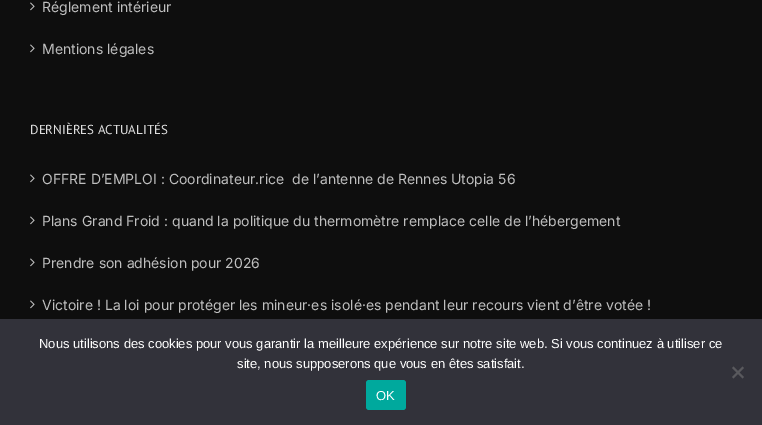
%!PS
<< /PageSize [762 425] >> setpagedevice
/rgb { dup -16 bitshift 255 div exch dup -8 bitshift 255 and 255 div exch 255 and 255 div setrgbcolor } def
/font { [ exch dup neg 0 0 3 -1 roll 0 0 ] selectfont } def
/text { moveto show } def
/roundrect { 5 dict begin { /r /h /w /y /x } { exch def } forall
  x r add y moveto x w add y 2 copy h add r arct x w add y h add x 1 index r arct
  x y h add x y r arct x y 2 copy exch w add exch r arct closepath end } def
/picture { 5 dict begin { /h /w /y /x /name } { exch def } forall
  gsave x y translate w h scale
  w h 8 [w 0 0 h 0 0] name (r) file false 3 colorimage grestore end } def
0 425 translate 1 -1 scale
4 setmiterlimit
/s1 { /Inter-Regular 14 font 16#BFBFBF rgb } def
/s2 { /PTSans-Regular 13 font 16#DDDDDD rgb } def
/s3 { /LiberationSans-Regular 13 font 16#FFFFFF rgb } def
16#0E0E0E rgb
0 0 762 425 rectfill
(pic1.raw) 30 2 5 9 picture
s1
(Réglement intérieur) 42 12 text
(pic1.raw) 30 44 5 9 picture
(Mentions légales) 42 54 text
s2
(DERNIÈRES ACTUALITÉS) 30 134 text
(pic1.raw) 30 174 5 9 picture
s1
(OFFRE D’EMPLOI : Coordinateur.rice  de l’antenne de Rennes Utopia 56) 42 184 text
(pic1.raw) 30 216 5 9 picture
(Plans Grand Froid : quand la politique du thermomètre remplace celle de l’hébergement) 42 226 text
(pic1.raw) 30 258 5 9 picture
(Prendre son adhésion pour 2026) 42 268 text
(pic1.raw) 30 300 5 9 picture
(Victoire ! La loi pour protéger les mineur·es isolé·es pendant leur recours vient d’être votée !) 42 310 text
16#32323A rgb
0 319 762 106 rectfill
s3
(Nous utilisons des cookies pour vous garantir la meilleure expérience sur notre site web. Si vous continuez à utiliser ce) 39 348 text
(site, nous supposerons que vous en êtes satisfait.) 237 368 text
16#59595D rgb
742.5 366.5 moveto 744 368 lineto 733.5 378.5 lineto 732 377 lineto closepath fill
732 368 moveto 733.5 366.5 lineto 744 377 lineto 742.5 378.5 lineto closepath fill
16#00A99D rgb
366 380 40 30 3 roundrect fill
s3
(OK) 376 400 text
showpage
